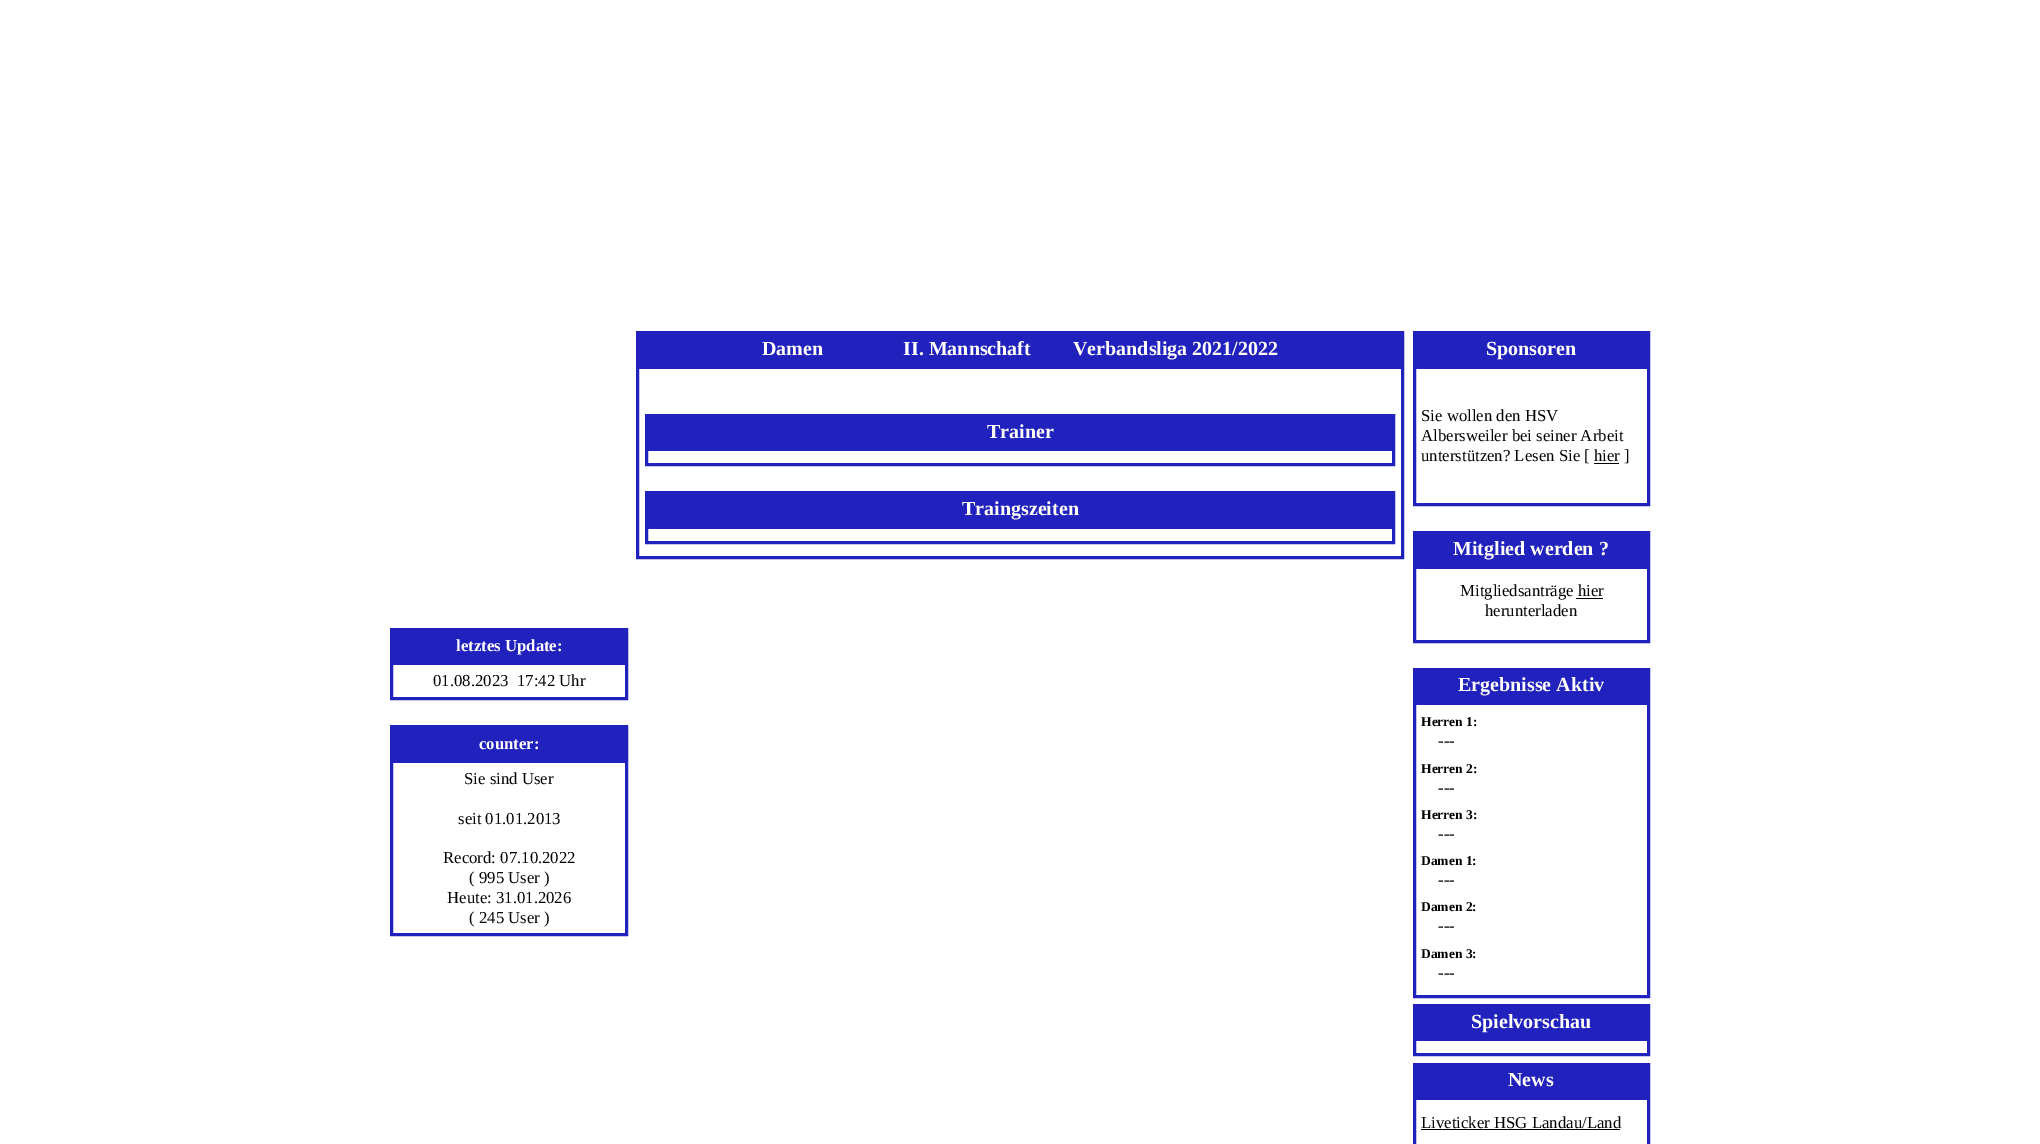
%!PS
<< /PageSize [2040 1144] >> setpagedevice
/rgb { dup -16 bitshift 255 div exch dup -8 bitshift 255 and 255 div exch 255 and 255 div setrgbcolor } def
/font { [ exch dup neg 0 0 3 -1 roll 0 0 ] selectfont } def
/text { moveto show } def
0 1144 translate 1 -1 scale
4 setmiterlimit
/s1 { /LiberationSerif-Bold 16.75 font 16#FFFFFF rgb } def
/s2 { /LiberationSerif-Regular 16.75 font 16#000000 rgb } def
/s3 { /LiberationSerif-Bold 20 font 16#FFFFFF rgb } def
/s4 { /LiberationSerif-Bold 13.5 font 16#000000 rgb } def
16#FFFFFF rgb
0 0 2040 1144 rectfill
16#2121BD rgb
3 setlinewidth
391.5 629.5 235 69 rectstroke
393 631 232 34 rectfill
s1
(letztes Update:) 456 651 text
s2
(01.08.2023  17:42 Uhr) 433 686 text
16#2121BD rgb
391.5 726.5 235 208 rectstroke
393 728 232 35 rectfill
s1
(counter:) 479 749 text
s2
(Sie sind User) 464 784 text
(seit 01.01.2013) 458 824 text
(Record: 07.10.2022) 443 863 text
(\( 995 User \)) 469 883 text
(Heute: 31.01.2026) 447 903 text
(\( 245 User \)) 469 923 text
16#2121BD rgb
637.5 332.5 765 225 rectstroke
639 334 762 35 rectfill
s3
(Damen) 762 355 text
(II. Mannschaft) 903 355 text
(Verbandsliga 2021/2022) 1073 355 text
16#2121BD rgb
646.5 415.5 747 49 rectstroke
648 417 744 34 rectfill
s3
(Trainer) 987 438 text
16#2121BD rgb
646.5 492.5 747 50 rectstroke
648 494 744 35 rectfill
s3
(Traingszeiten) 962 515 text
16#2121BD rgb
1414.5 332.5 234 172 rectstroke
1416 334 231 35 rectfill
s3
(Sponsoren) 1486 355 text
s2
(Sie wollen den HSV) 1421 421 text
(Albersweiler bei seiner Arbeit) 1421 441 text
(unterstützen? Lesen Sie [ hier ]) 1421 461 text
1594 463 25 1 rectfill
16#2121BD rgb
1414.5 532.5 234 109 rectstroke
1416 534 231 35 rectfill
s3
(Mitglied werden ?) 1453 555 text
s2
(Mitgliedsanträge hier) 1460 596 text
1576 598 27 1 rectfill
(herunterladen) 1485 616 text
16#2121BD rgb
1414.5 669.5 234 327 rectstroke
1416 671 231 34 rectfill
s3
(Ergebnisse Aktiv) 1458 691 text
s4
(Herren 1:) 1421 726 text
s2
(---) 1438 746 text
s4
(Herren 2:) 1421 773 text
s2
(---) 1438 793 text
s4
(Herren 3:) 1421 819 text
s2
(---) 1438 839 text
s4
(Damen 1:) 1421 865 text
s2
(---) 1438 885 text
s4
(Damen 2:) 1421 911 text
s2
(---) 1438 931 text
s4
(Damen 3:) 1421 958 text
s2
(---) 1438 978 text
16#2121BD rgb
1414.5 1005.5 234 49 rectstroke
1416 1007 231 34 rectfill
s3
(Spielvorschau) 1471 1028 text
16#2121BD rgb
1414.5 1064.5 234 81 rectstroke
1416 1066 231 34 rectfill
s3
(News) 1508 1086 text
s2
(Liveticker HSG Landau/Land) 1421 1128 text
1421 1129 199 1 rectfill
showpage
